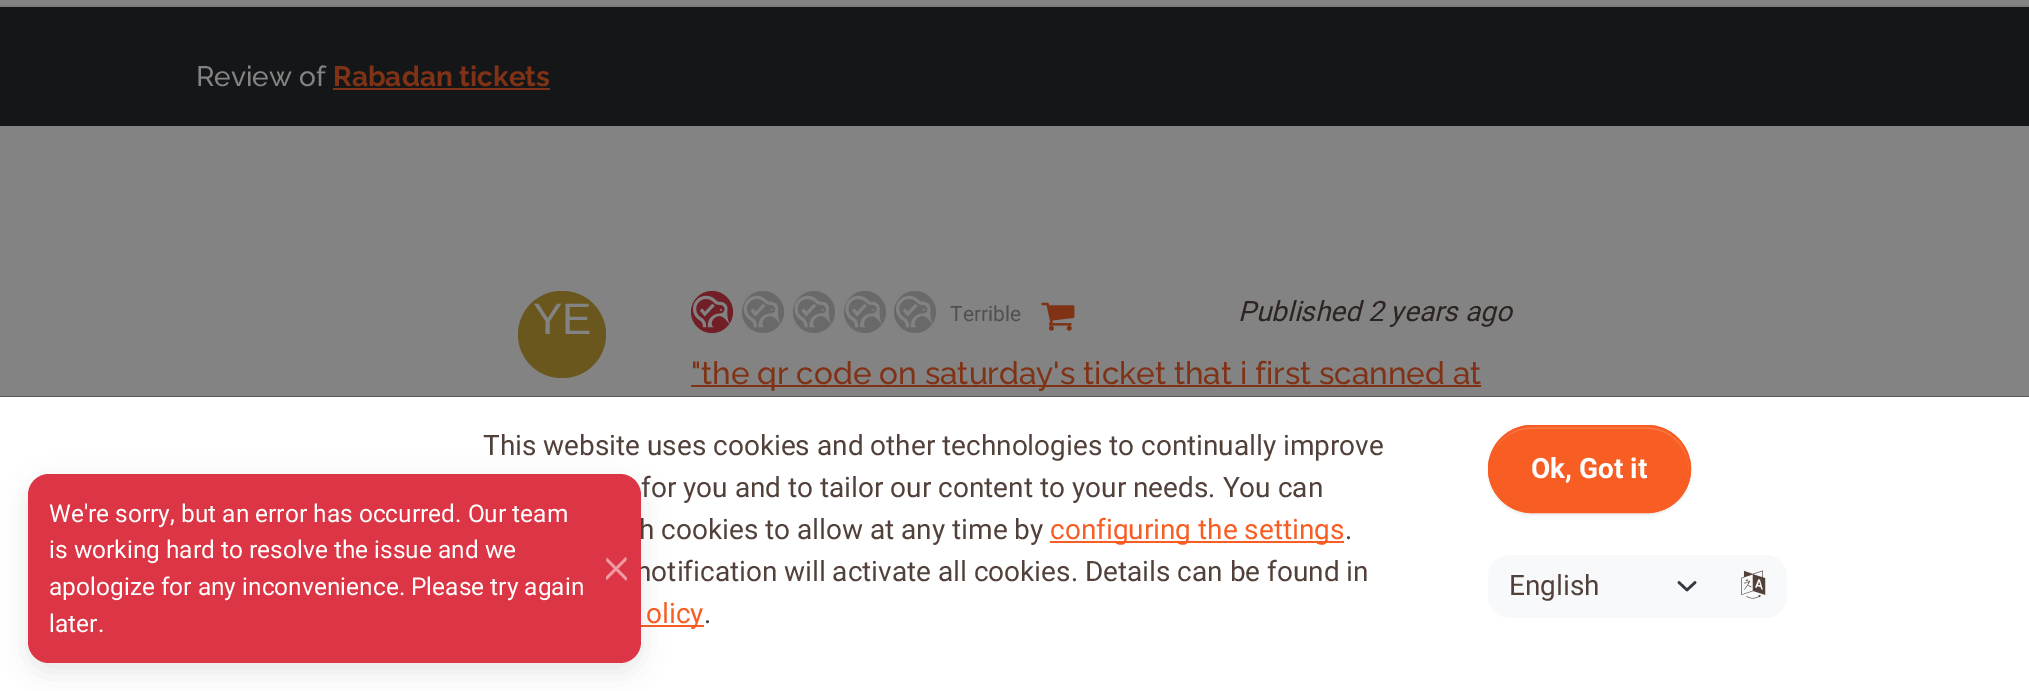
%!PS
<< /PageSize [2029 691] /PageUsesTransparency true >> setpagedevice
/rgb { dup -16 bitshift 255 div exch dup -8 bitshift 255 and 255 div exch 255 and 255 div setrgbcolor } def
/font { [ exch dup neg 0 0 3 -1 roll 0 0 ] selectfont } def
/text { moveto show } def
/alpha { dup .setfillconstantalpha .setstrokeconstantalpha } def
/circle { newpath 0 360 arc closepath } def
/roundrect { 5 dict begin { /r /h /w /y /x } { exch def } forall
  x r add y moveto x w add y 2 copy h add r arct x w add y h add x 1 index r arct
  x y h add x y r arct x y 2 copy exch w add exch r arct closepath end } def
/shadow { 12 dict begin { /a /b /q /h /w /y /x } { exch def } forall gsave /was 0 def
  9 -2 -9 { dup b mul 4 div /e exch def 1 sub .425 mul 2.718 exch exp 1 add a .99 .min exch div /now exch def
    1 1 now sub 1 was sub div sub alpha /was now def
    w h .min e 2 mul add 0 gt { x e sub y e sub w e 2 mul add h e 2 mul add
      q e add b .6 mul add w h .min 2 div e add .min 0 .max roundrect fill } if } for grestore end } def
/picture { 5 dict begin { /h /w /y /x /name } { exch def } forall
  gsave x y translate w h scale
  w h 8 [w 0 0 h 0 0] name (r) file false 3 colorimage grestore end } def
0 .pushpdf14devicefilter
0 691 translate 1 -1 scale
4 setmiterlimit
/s1 { /Raleway-Thin 28 font 16#838383 rgb } def
/s2 { /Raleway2-Thin 28 font 16#7F3215 rgb } def
/s3 { /LiberationSans-Regular 44 font 16#838383 rgb } def
/s4 { /Roboto-Regular 21 font 16#505050 rgb } def
/s5 { /Roboto-Italic 28 font 16#2C2420 rgb } def
/s6 { /Raleway-Thin 31.5 font 16#7F3215 rgb } def
/s7 { /Roboto-Regular 28 font 16#52413A rgb } def
/s8 { /Roboto-Regular 28 font 16#F85D23 rgb } def
/s9 { /Roboto-Bold 28 font 16#FFFFFF rgb } def
/s10 { /Roboto-Regular 24.5 font 16#FFFFFF rgb } def
16#838383 rgb
0 0 2029 691 rectfill
16#7A7A7A rgb
0 5 2029 2 rectfill
16#141618 rgb
0 7 2029 119 rectfill
s1
(Review of) 196 86 text
s2
(Rabadan tickets) 333 86 text
333 88 217 2 rectfill
16#69571D rgb
518 291 88 87 43.5 roundrect fill
s3
(YE) 533 334 text
(pic2.raw) 729 323 1 2 picture
16#711E26 rgb
712 312 21 circle fill
(pic1.raw) 693 295 37 33 picture
16#696969 rgb
763 312 21 circle fill
(pic3.raw) 743 295 37 33 picture
814 312 21 circle fill
(pic4.raw) 794 295 37 33 picture
865 312 21 circle fill
(pic5.raw) 845 295 37 33 picture
915 312 21 circle fill
(pic6.raw) 896 295 37 33 picture
s4
(Terrible) 950 321 text
(pic7.raw) 1041 302 34 29 picture
s5
(Published 2 years ago) 1238 321 text
16#7F3215 rgb
691 385 790 2 rectfill
s6
("the qr code on saturday's ticket that i first scanned at) 691 384 text
0.3 alpha
16#000000 rgb
0 396 2029 1 rectfill
gsave
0 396 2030 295 rectclip
1 alpha
0 406 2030 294 0 13 0.1 shadow
grestore
1 alpha
16#FFFFFF rgb
0 397 2029 294 rectfill
s7
(This website uses cookies and other technologies to continually improve) 483 455 text
(for you and to tailor our content to your needs. You can) 641 497 text
(h cookies to allow at any time by) 639 539 text
16#F85D23 rgb
1050 541 294 2 rectfill
(configuring the settings) 1050 539 text
s7
(.) 1345 539 text
(notification will activate all cookies. Details can be found in) 636 581 text
16#F85D23 rgb
641 625 63 2 rectfill
(olicy) 646 623 text
s7
(.) 704 623 text
16#060606 rgb
1488 427 203 88 44 1 0.07 shadow
16#F85D23 rgb
1488 425 203 88 44 roundrect fill
16#F97544 rgb
1531 429 moveto 1647 429 lineto 1670 429 1688 447 1689 470 curveto 1689 469 lineto 1689 446 1670 427 1647 427 curveto 1531 427 lineto 1508 427 1489 446 1489 469 curveto 1489 470 lineto 1490 447 1508 429 1531 429 curveto closepath fill
16#F85D23 rgb
2 setlinewidth
1489 426 201 86 43 roundrect stroke
s9
(Ok, Got it) 1531 478 text
16#F8F9FA rgb
1720 555 moveto 1766 555 lineto 1777.5 555 1787 564.5 1787 576 curveto 1787 597 lineto 1787 608.5 1777.5 618 1766 618 curveto 1720 618 lineto closepath fill
1509 555 moveto 1722 555 lineto 1722 618 lineto 1509 618 lineto 1497.5 618 1488 608.5 1488 597 curveto 1488 576 lineto 1488 564.5 1497.5 555 1509 555 curveto closepath fill
16#343A40 rgb
2.6 setlinewidth
1 setlinecap
1 setlinejoin
1679 582.5 moveto 1687 590 lineto 1695 582.5 lineto stroke
s7
(English) 1509 595 text
(pic8.raw) 1741 570 25 29 picture
16#000000 rgb
28 483 613 189 21 13 0.1 shadow
16#DC3545 rgb
28 474 613 189 21 roundrect fill
s10
(We're sorry, but an error has occurred. Our team) 49 522 text
(is working hard to resolve the issue and we) 49 558 text
(apologize for any inconvenience. Please try again) 49 595 text
(later.) 49 632 text
(pic9.raw) 606 557 21 24 picture
.poppdf14devicefilter showpage
